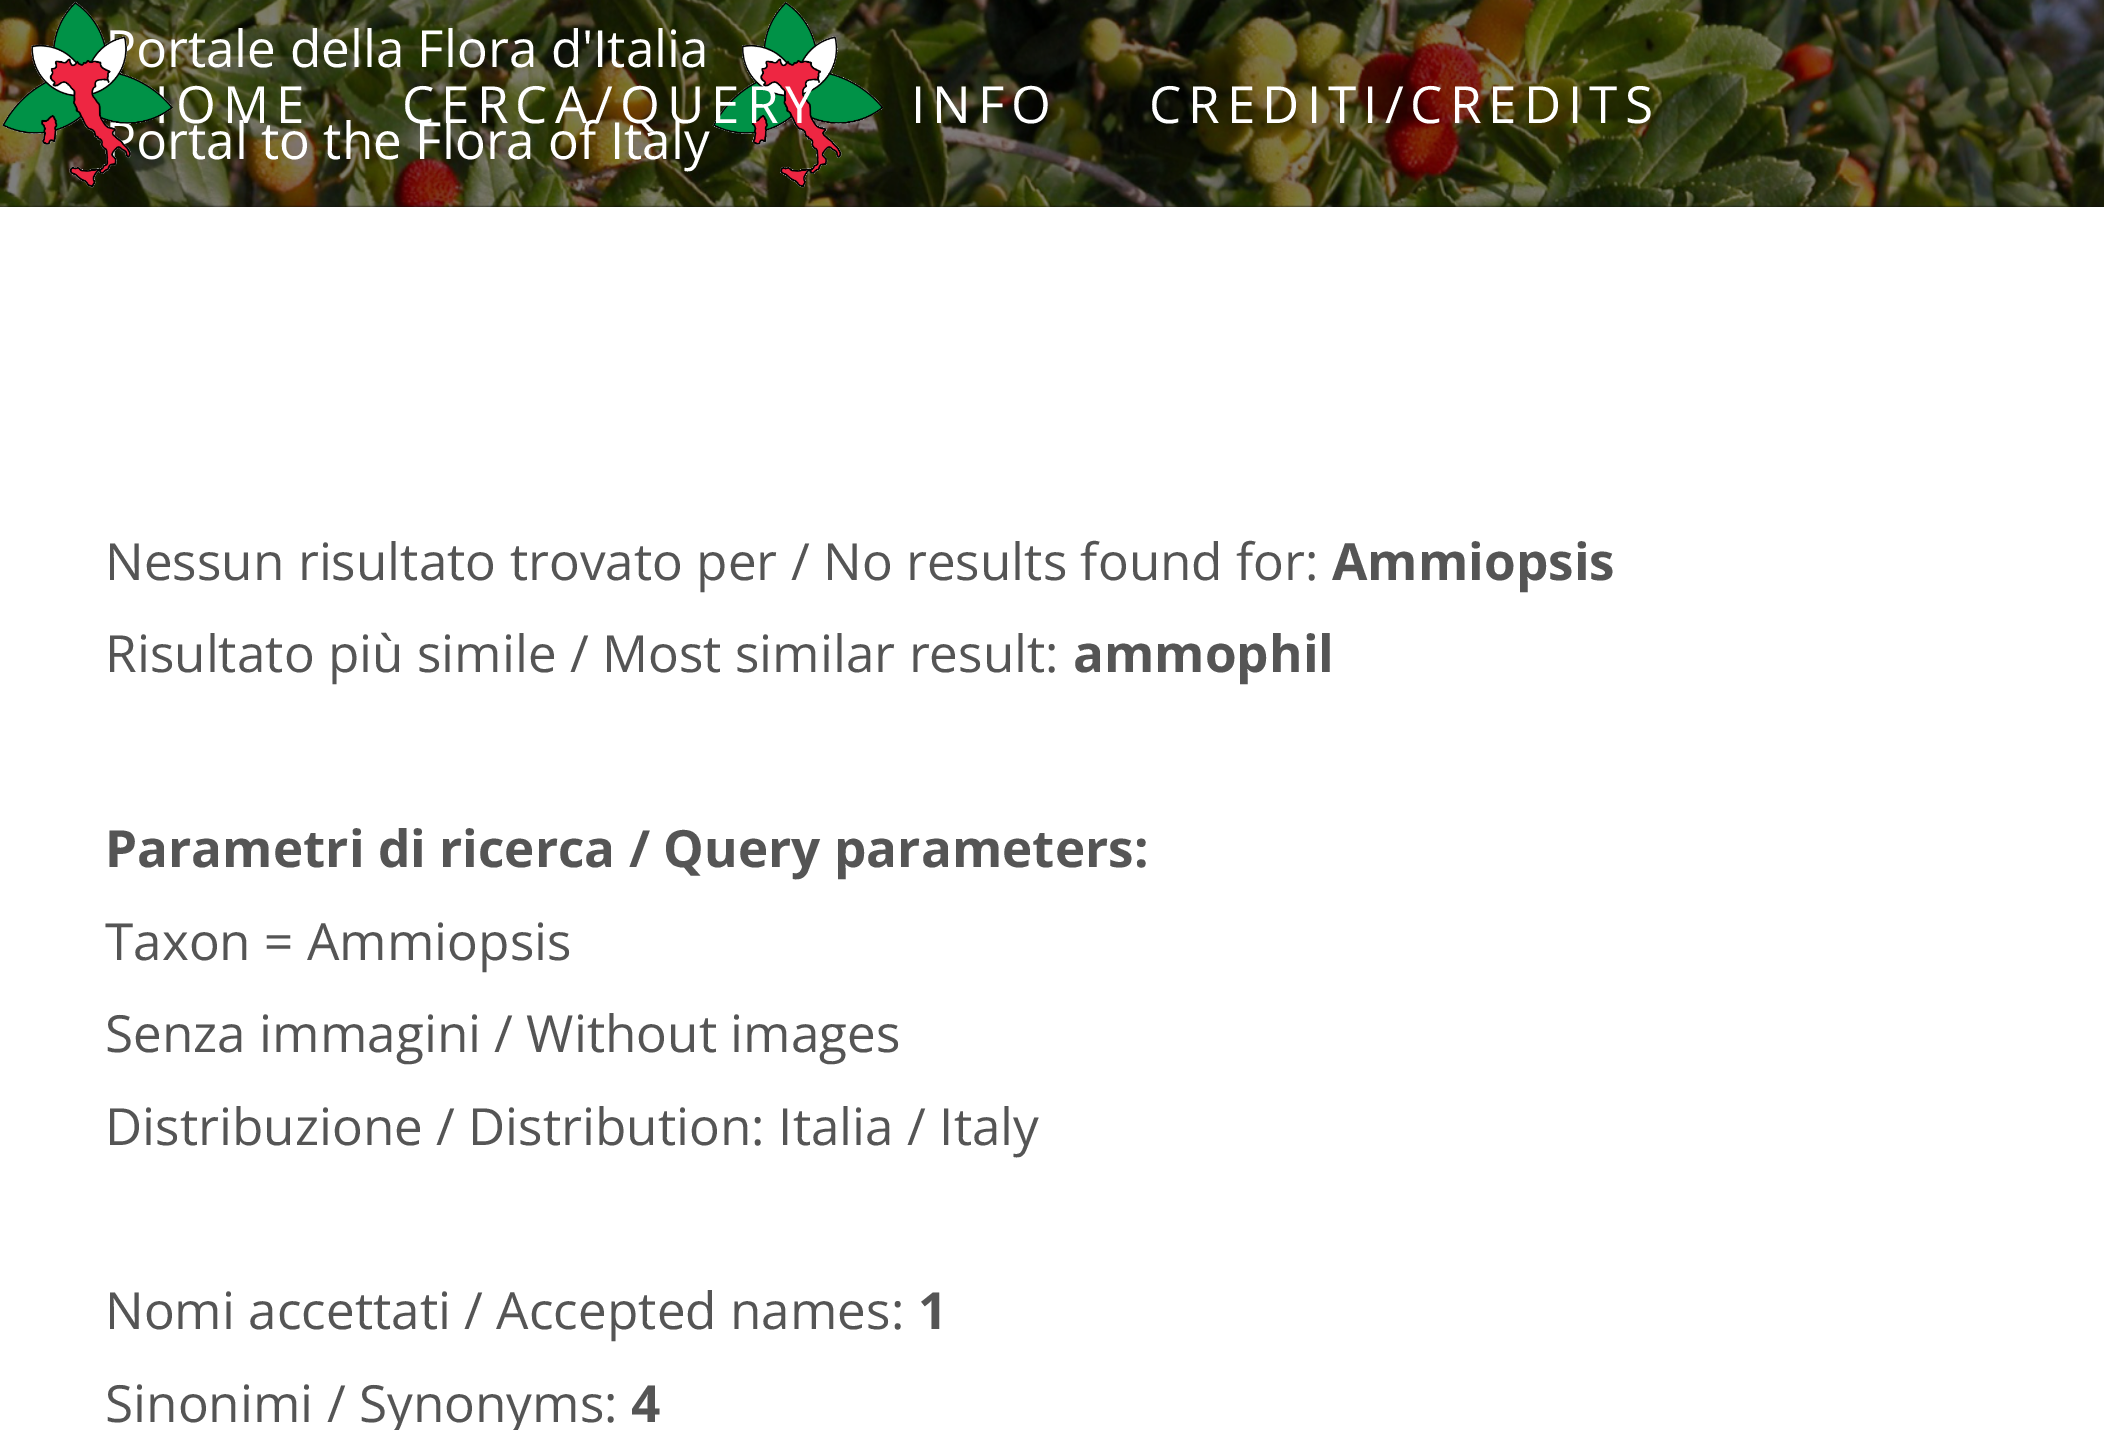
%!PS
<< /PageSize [2104 1430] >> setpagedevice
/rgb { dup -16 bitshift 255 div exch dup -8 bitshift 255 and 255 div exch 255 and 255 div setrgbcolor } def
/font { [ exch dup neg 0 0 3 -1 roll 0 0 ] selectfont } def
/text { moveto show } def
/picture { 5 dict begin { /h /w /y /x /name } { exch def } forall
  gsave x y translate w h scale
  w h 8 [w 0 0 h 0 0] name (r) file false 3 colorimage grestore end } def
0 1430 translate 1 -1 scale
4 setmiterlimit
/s1 { /OpenSans-Regular 51.3 font 16#FFFFFF rgb } def
/s2 { /OpenSans-Regular 51.3 font 16#555555 rgb } def
/s3 { /OpenSans-Bold 51.3 font 16#555555 rgb } def
16#FFFFFF rgb
0 0 2104 1430 rectfill
16#111111 rgb
0 205 2104 2 rectfill
(pic2.raw) 0 0 2104 207 picture
s1
(Portale della Flora d'Italia) 105 67 text
(ortal to the Flora of Italy) 136 159 text
(pic1.raw) 2 1 171 187 picture
(pic3.raw) 712 1 172 187 picture
176 123 moveto 7 0 (OME) ashow
402 123 moveto 7 0 (CERCA/QUERY) ashow
911 123 moveto 7 0 (INFO) ashow
1149 123 moveto 7 0 (CREDITI/CREDITS) ashow
s2
(Nessun risultato trovato per / No results found for:) 105 580 text
s3
(Ammiopsis) 1332 580 text
s2
(Risultato più simile / Most similar result:) 105 672 text
s3
(ammophil) 1073 672 text
(Parametri di ricerca / Query parameters:) 105 867 text
s2
(Taxon = Ammiopsis) 105 960 text
(Senza immagini / Without images) 105 1052 text
(Distribuzione / Distribution: Italia / Italy) 105 1145 text
(Nomi accettati / Accepted names:) 105 1329 text
s3
(1) 918 1329 text
s2
(Sinonimi / Synonyms:) 105 1422 text
s3
(4) 631 1422 text
showpage
